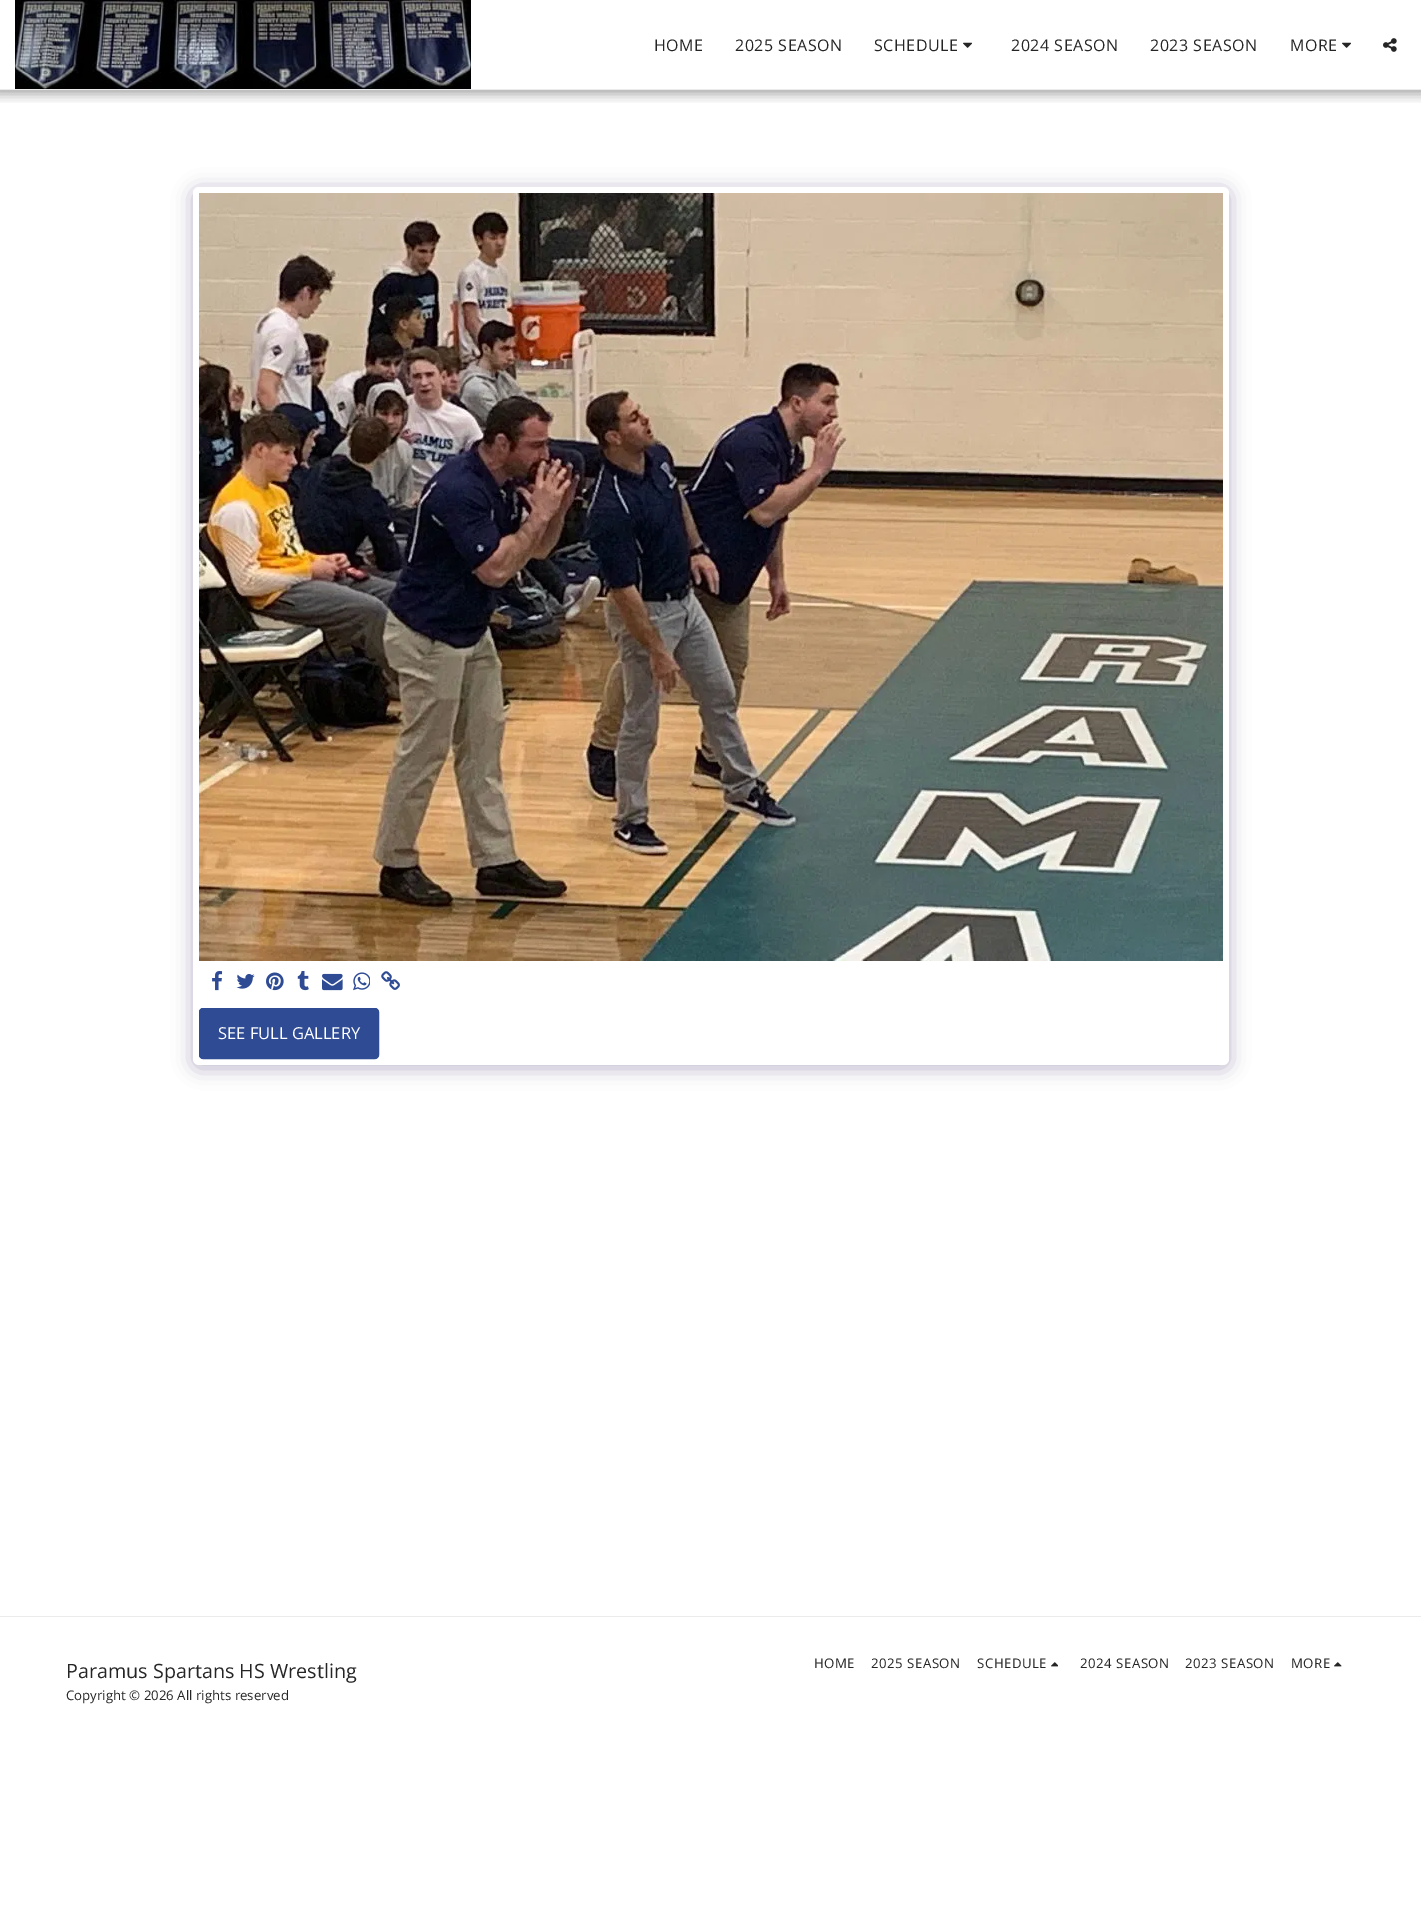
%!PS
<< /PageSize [1421 1908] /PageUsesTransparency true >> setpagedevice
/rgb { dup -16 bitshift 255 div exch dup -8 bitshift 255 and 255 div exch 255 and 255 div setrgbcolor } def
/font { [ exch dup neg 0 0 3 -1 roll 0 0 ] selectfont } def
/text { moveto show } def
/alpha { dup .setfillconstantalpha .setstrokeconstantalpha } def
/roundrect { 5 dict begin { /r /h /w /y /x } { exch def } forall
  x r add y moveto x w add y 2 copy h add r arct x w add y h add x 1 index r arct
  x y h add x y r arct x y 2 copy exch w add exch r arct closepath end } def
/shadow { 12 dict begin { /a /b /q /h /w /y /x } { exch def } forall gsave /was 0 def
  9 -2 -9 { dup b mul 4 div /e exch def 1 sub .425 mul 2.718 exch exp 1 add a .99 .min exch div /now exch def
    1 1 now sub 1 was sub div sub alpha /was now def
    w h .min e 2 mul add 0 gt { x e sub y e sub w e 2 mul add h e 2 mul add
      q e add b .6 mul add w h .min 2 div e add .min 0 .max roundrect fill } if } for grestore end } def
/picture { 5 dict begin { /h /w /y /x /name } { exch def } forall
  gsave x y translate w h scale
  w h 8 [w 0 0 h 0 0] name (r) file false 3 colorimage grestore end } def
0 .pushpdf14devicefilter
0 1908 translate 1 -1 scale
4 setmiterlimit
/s1 { /OpenSans-Regular 16.5 font 16#FFFFFF rgb } def
/s2 { /OpenSans-Regular 19.75 font 16#252525 rgb } def
/s3 { /OpenSans-Regular 13.25 font 16#252525 rgb } def
16#FFFFFF rgb
0 0 1421 1908 rectfill
gsave
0 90 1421 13 rectclip
16#000000 rgb
-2 0 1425 94 0 6 0.35 shadow
grestore
16#EBEBEB rgb
0 89 1421 1 rectfill
(pic1.raw) 15 0 456 89 picture
/OpenSans-Regular 16 font
16#252525 rgb
654 51 moveto 0.5 0 (HOME) ashow
735 51 moveto 0.5 0 (2025 SEASON) ashow
874 51 moveto 0.5 0 (SCHEDULE) ashow
(pic2.raw) 963 42 9 6 picture
1011 51 moveto 0.5 0 (2024 SEASON) ashow
1150 51 moveto 0.5 0 (2023 SEASON) ashow
1290 51 moveto 0.5 0 (MORE) ashow
(pic2.raw) 1342 42 9 6 picture
(pic3.raw) 1383 38 14 14 picture
16#4D3F7A rgb
193 190 1036 878 6 10 0.4 shadow
16#FFFFFF rgb
193 187 1036 878 6 roundrect fill
(pic4.raw) 199 193 1024 768 picture
(pic5.raw) 212 971 11 20 picture
(pic6.raw) 236 974 19 15 picture
(pic7.raw) 266 972 18 19 picture
(pic8.raw) 297 971 12 20 picture
(pic9.raw) 322 973 21 18 picture
(pic10.raw) 353 972 17 19 picture
(pic11.raw) 381 971 19 19 picture
16#2E4B94 rgb
199.5 1008.5 179 50 3.5 roundrect gsave fill grestore
stroke
s1
(SEE FULL GALLERY) 218 1039 text
16#EBEBEB rgb
0 1616 1421 1 rectfill
s2
(Paramus Spartans HS Wrestling) 66 1678 text
s3
(Copyright © 2026 All rights reserved) 66 1700 text
814 1668 moveto 0.5 0 (HOME) ashow
871 1668 moveto 0.5 0 (2025 SEASON) ashow
977 1668 moveto 0.5 0 (SCHEDULE) ashow
(pic12.raw) 1051 1662 7 5 picture
1080 1668 moveto 0.5 0 (2024 SEASON) ashow
1185 1668 moveto 0.5 0 (2023 SEASON) ashow
1291 1668 moveto 0.5 0 (MORE) ashow
(pic13.raw) 1334 1662 8 5 picture
.poppdf14devicefilter showpage
